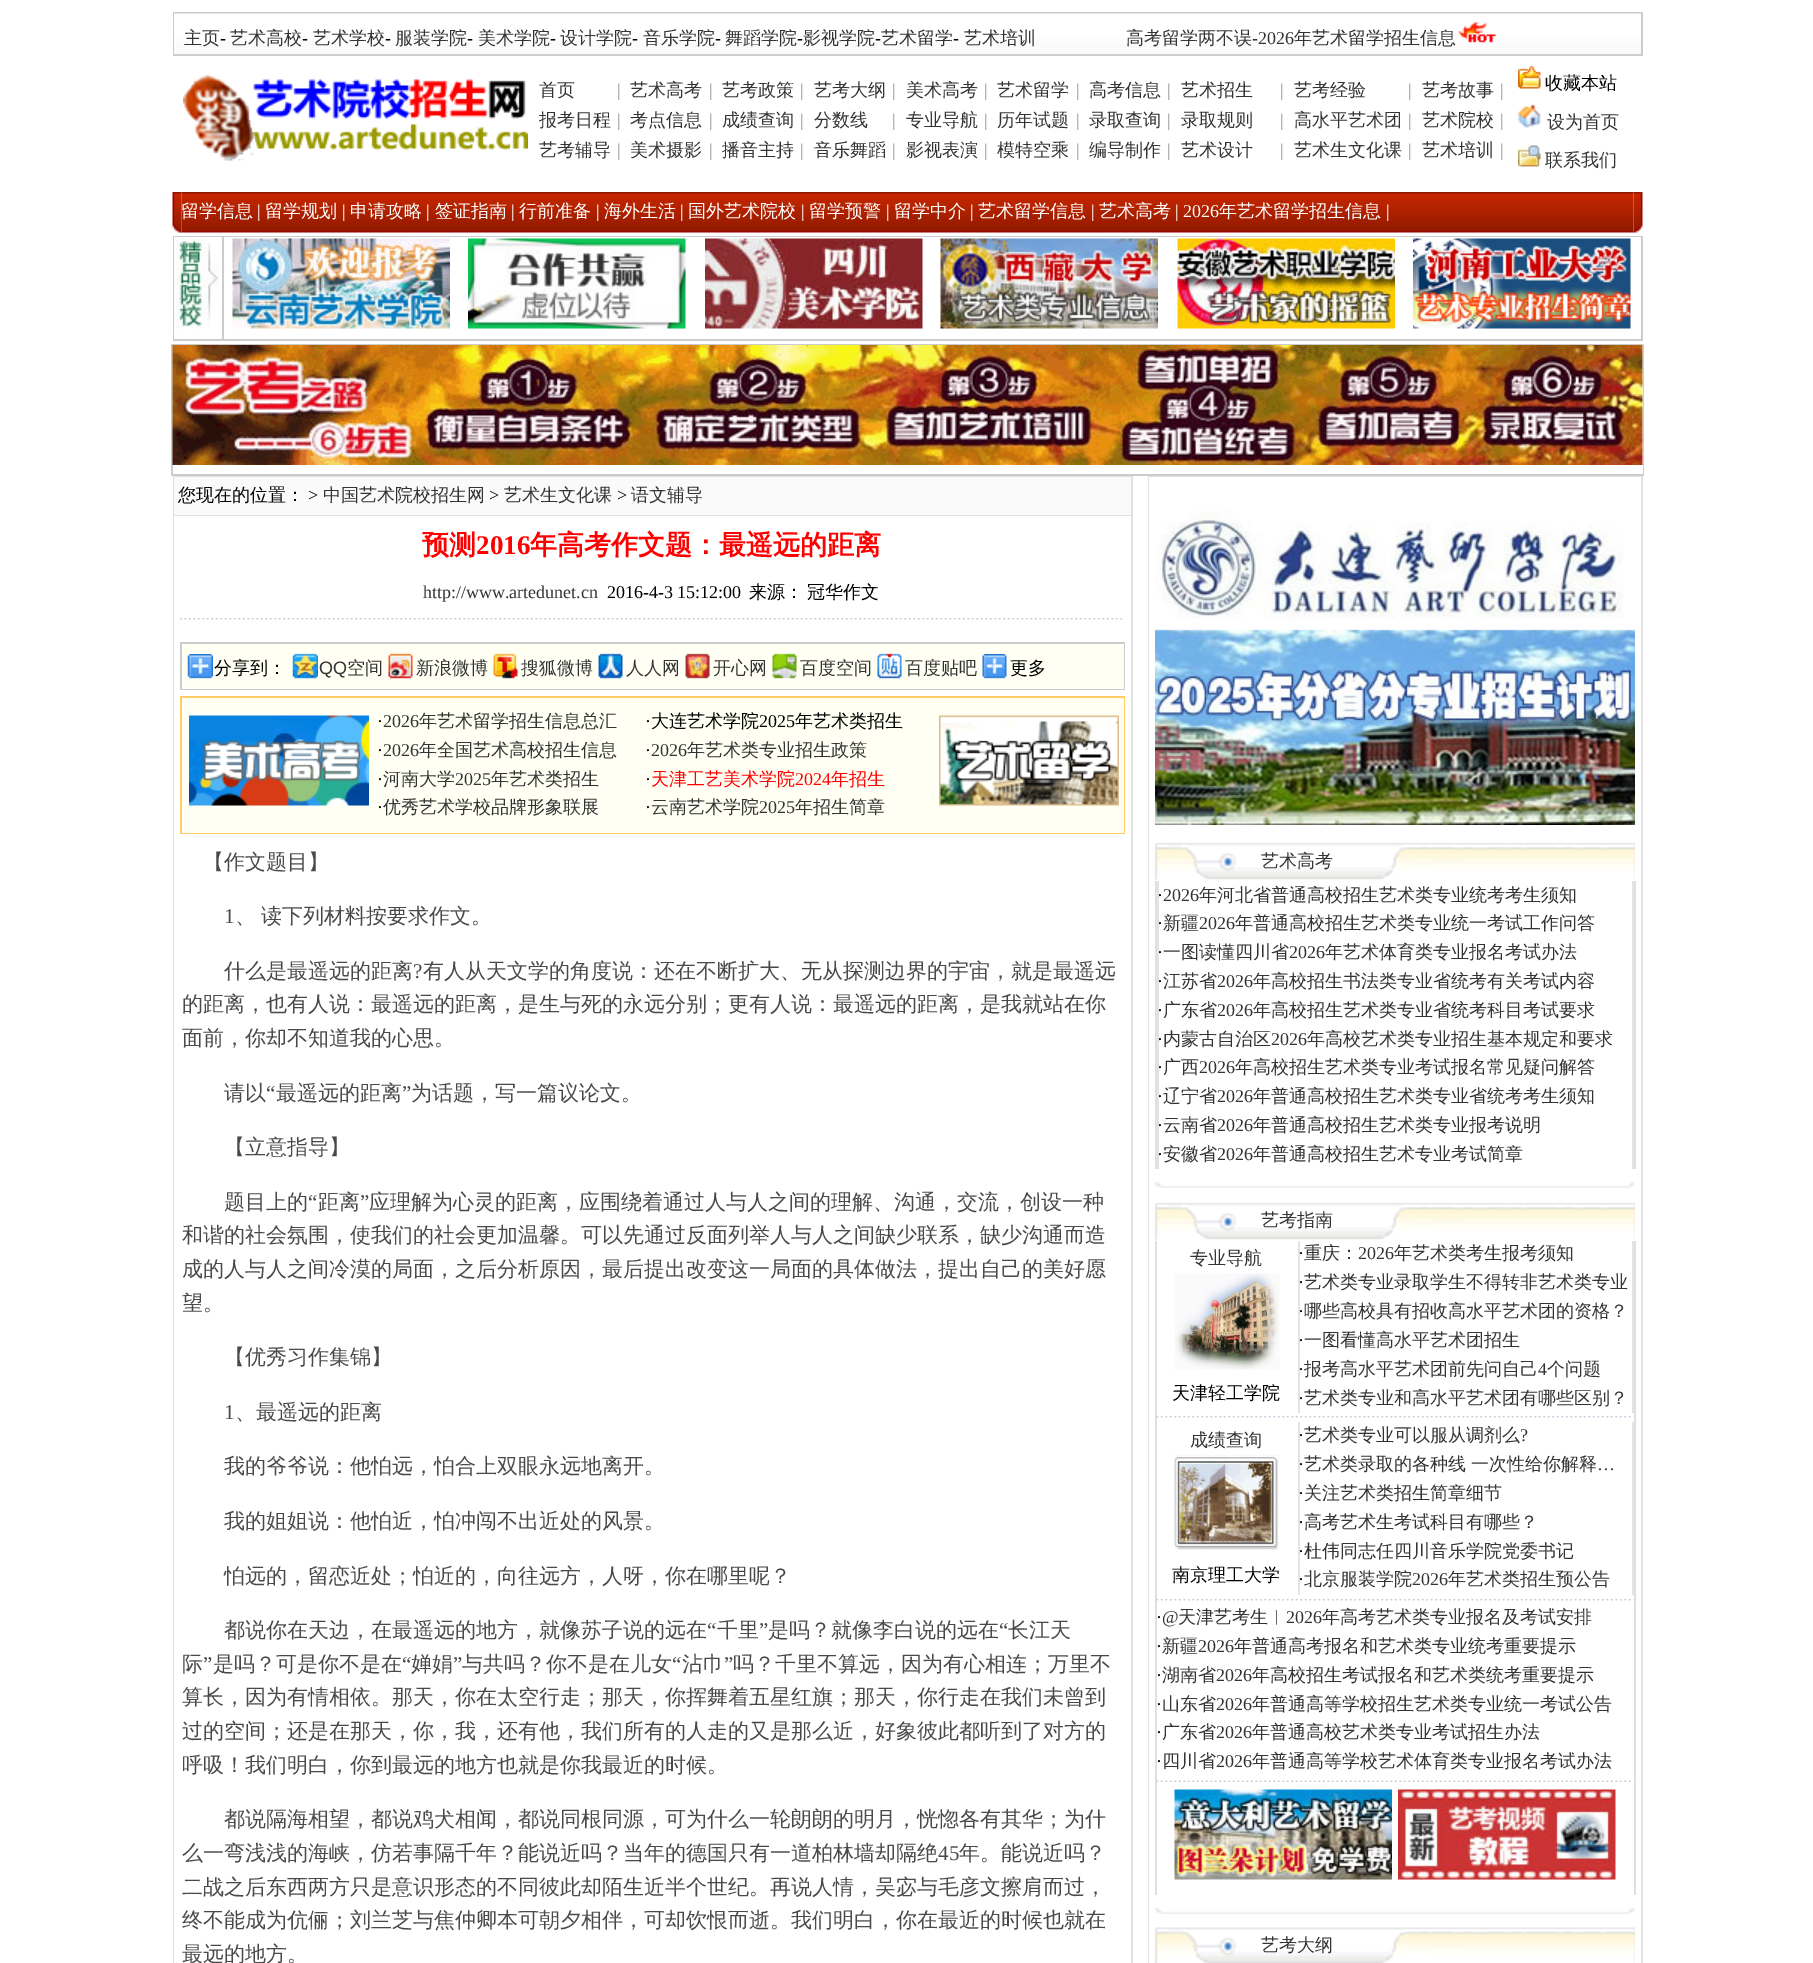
%!PS
<< /PageSize [1813 1963] >> setpagedevice
/rgb { dup -16 bitshift 255 div exch dup -8 bitshift 255 and 255 div exch 255 and 255 div setrgbcolor } def
/font { [ exch dup neg 0 0 3 -1 roll 0 0 ] selectfont } def
/text { moveto show } def
/picture { 5 dict begin { /h /w /y /x /name } { exch def } forall
  gsave x y translate w h scale
  w h 8 [w 0 0 h 0 0] name (r) file false 3 colorimage grestore end } def
0 1963 translate 1 -1 scale
4 setmiterlimit
/s1 { /WenQuanYiZenHei-Medium 18 font 16#333333 rgb } def
/s2 { /LiberationSerif-Regular 18 font 16#000000 rgb } def
/s3 { /LiberationSerif-Regular 18 font 16#333333 rgb } def
/s4 { /LiberationSerif-Regular 18 font 16#999999 rgb } def
/s5 { /WenQuanYiZenHei-Medium 18 font 16#000000 rgb } def
/s6 { /WenQuanYiZenHei-Medium 18 font 16#FFFFFF rgb } def
/s7 { /LiberationSerif-Regular 18 font 16#FFFFFF rgb } def
/s8 { /WenQuanYiZenHei-Bold 27 font 16#FF0000 rgb } def
/s9 { /LiberationSerif-Bold 27 font 16#FF0000 rgb } def
/s10 { /LiberationSans-Regular 18 font 16#333333 rgb } def
/s11 { /WenQuanYiZenHei-Medium 18 font 16#FF0000 rgb } def
/s12 { /LiberationSerif-Regular 18 font 16#FF0000 rgb } def
/s13 { /WenQuanYiZenHei-Medium 21 font 16#494949 rgb } def
/s14 { /LiberationSerif-Regular 21 font 16#494949 rgb } def
16#FFFFFF rgb
0 0 1813 1963 rectfill
16#CCCCCC rgb
173 12 1470 44 rectfill
(pic1.raw) 174 13 1467 41 picture
s1
(主页) 184 44 text
s2
(-) 220 44 text
s1
(艺术高校) 230 44 text
s2
(-) 302 44 text
s1
(艺术学校) 313 44 text
s2
(-) 385 44 text
s1
(服装学院) 395 44 text
s2
(-) 467 44 text
s1
(美术学院) 478 44 text
s2
(-) 550 44 text
s1
(设计学院) 560 44 text
s2
(-) 632 44 text
s1
(音乐学院) 643 44 text
s2
(-) 715 44 text
s1
(舞蹈学院) 725 44 text
s2
(-) 797 44 text
s1
(影视学院) 803 44 text
s2
(-) 875 44 text
s1
(艺术留学) 881 44 text
s2
(-) 953 44 text
s1
(艺术培训) 964 44 text
(高考留学两不误) 1126 44 text
s3
(-2026) 1252 44 text
s1
(年艺术留学招生信息) 1294 44 text
(pic2.raw) 1457 21 39 22 picture
(pic3.raw) 183 74 345 87 picture
(首页) 539 96 text
s4
(|) 617 96 text
s1
(艺术高考) 630 96 text
s4
(|) 709 96 text
s1
(艺考政策) 722 96 text
s4
(|) 800 96 text
s1
(艺考大纲) 814 96 text
s4
(|) 892 96 text
s1
(美术高考) 906 96 text
s4
(|) 984 96 text
s1
(艺术留学) 997 96 text
s4
(|) 1076 96 text
s1
(高考信息) 1089 96 text
s4
(|) 1167 96 text
s1
(艺术招生) 1181 96 text
s4
(|) 1280 96 text
s1
(艺考经验) 1294 96 text
s4
(|) 1408 96 text
s1
(艺考故事) 1422 96 text
s4
(|) 1500 96 text
s1
(报考日程) 539 126 text
s4
(|) 617 126 text
s1
(考点信息) 630 126 text
s4
(|) 709 126 text
s1
(成绩查询) 722 126 text
s4
(|) 800 126 text
s1
(分数线) 814 126 text
s4
(|) 892 126 text
s1
(专业导航) 906 126 text
s4
(|) 984 126 text
s1
(历年试题) 997 126 text
s4
(|) 1076 126 text
s1
(录取查询) 1089 126 text
s4
(|) 1167 126 text
s1
(录取规则) 1181 126 text
s4
(|) 1280 126 text
s1
(高水平艺术团) 1294 126 text
s4
(|) 1408 126 text
s1
(艺术院校) 1422 126 text
s4
(|) 1500 126 text
s1
(艺考辅导) 539 156 text
s4
(|) 617 156 text
s1
(美术摄影) 630 156 text
s4
(|) 709 156 text
s1
(播音主持) 722 156 text
s4
(|) 800 156 text
s1
(音乐舞蹈) 814 156 text
s4
(|) 892 156 text
s1
(影视表演) 906 156 text
s4
(|) 984 156 text
s1
(模特空乘) 997 156 text
s4
(|) 1076 156 text
s1
(编导制作) 1089 156 text
s4
(|) 1167 156 text
s1
(艺术设计) 1181 156 text
s4
(|) 1280 156 text
s1
(艺术生文化课) 1294 156 text
s4
(|) 1408 156 text
s1
(艺术培训) 1422 156 text
s4
(|) 1500 156 text
(pic4.raw) 1518 66 23 23 picture
s5
(收藏本站) 1545 89 text
(pic5.raw) 1518 104 23 24 picture
s1
(设为首页) 1547 128 text
(pic6.raw) 1518 145 23 22 picture
(联系我们) 1545 166 text
(pic7.raw) 172 192 10 41 picture
(pic8.raw) 181 192 1453 41 picture
s6
(留学信息) 181 217 text
s7
(|) 257 217 text
s6
(留学规划) 265 217 text
s7
(|) 342 217 text
s6
(申请攻略) 350 217 text
s7
(|) 426 217 text
s6
(签证指南) 435 217 text
s7
(|) 511 217 text
s6
(行前准备) 519 217 text
s7
(|) 596 217 text
s6
(海外生活) 604 217 text
s7
(|) 680 217 text
s6
(国外艺术院校) 688 217 text
s7
(|) 801 217 text
s6
(留学预警) 809 217 text
s7
(|) 886 217 text
s6
(留学中介) 894 217 text
s7
(|) 970 217 text
s6
(艺术留学信息) 978 217 text
s7
(|) 1091 217 text
s6
(艺术高考) 1099 217 text
s7
(| 2026) 1175 217 text
s6
(年艺术留学招生信息) 1219 217 text
s7
(|) 1386 217 text
(pic9.raw) 1633 192 10 41 picture
16#CCCCCC rgb
173 236 1470 105 rectfill
16#FFFFFF rgb
174 237 48 102 rectfill
(pic10.raw) 174 238 45 91 picture
224 237 1417 102 rectfill
(pic11.raw) 232 238 218 91 picture
(pic12.raw) 468 238 218 91 picture
(pic13.raw) 705 238 218 91 picture
(pic14.raw) 940 238 218 91 picture
(pic15.raw) 1177 238 218 91 picture
(pic16.raw) 1413 238 218 91 picture
16#CCCCCC rgb
171 344 1473 132 rectfill
16#FFFFFF rgb
173 345 1470 129 rectfill
(pic17.raw) 172 345 1471 120 picture
16#E1E1E1 rgb
173 476 960 1487 rectfill
16#FAFAFA rgb
174 477 957 38 rectfill
s5
(您现在的位置：) 178 501 text
s2
(>) 308 501 text
s1
(中国艺术院校招生网) 323 501 text
s2
(>) 489 501 text
s1
(艺术生文化课) 504 501 text
s2
(>) 617 501 text
s1
(语文辅导) 631 501 text
16#FFFFFF rgb
174 516 957 1447 rectfill
s8
(预测) 422 554 text
s9
(2016) 476 554 text
s8
(年高考作文题：最遥远的距离) 530 554 text
s3
(http://www.artedunet.cn) 423 598 text
s2
(2016-4-3 15:12:00) 607 598 text
/WenQuanYiZenHei-Medium 18 font
749 598 moveto -1 0 32 (来源： 冠华作文) widthshow
(pic18.raw) 180 618 945 2 picture
16#CCCCCC rgb
180 642 945 48 rectfill
16#FFFFF4 rgb
182 644 942 45 rectfill
(pic19.raw) 187 654 26 25 picture
s5
(分享到：) 214 674 text
(pic20.raw) 292 653 26 26 picture
s10
(QQ) 319 674 text
s1
(空间) 347 674 text
(pic21.raw) 388 653 25 26 picture
(新浪微博) 416 674 text
(pic22.raw) 493 653 25 26 picture
(搜狐微博) 521 674 text
(pic23.raw) 598 653 25 26 picture
(人人网) 626 674 text
(pic24.raw) 685 653 25 26 picture
(开心网) 713 674 text
(pic25.raw) 772 653 25 26 picture
(百度空间) 800 674 text
(pic26.raw) 877 653 25 26 picture
(百度贴吧) 905 674 text
(pic27.raw) 982 654 25 25 picture
s5
(更多) 1010 674 text
16#FFCC66 rgb
180 696 945 138 rectfill
16#FFFFF4 rgb
182 698 942 135 rectfill
(pic28.raw) 189 715 180 91 picture
s2
(·) 377 727 text
s3
(2026) 383 727 text
s1
(年艺术留学招生信息总汇) 419 727 text
s2
(·) 377 756 text
s3
(2026) 383 756 text
s1
(年全国艺术高校招生信息) 419 756 text
s2
(·) 377 785 text
s1
(河南大学) 383 785 text
s3
(2025) 455 785 text
s1
(年艺术类招生) 491 785 text
s2
(·) 377 813 text
s1
(优秀艺术学校品牌形象联展) 383 813 text
s2
(·) 645 727 text
s5
(大连艺术学院) 651 727 text
s2
(2025) 759 727 text
s5
(年艺术类招生) 795 727 text
s2
(·) 645 756 text
s3
(2026) 651 756 text
s1
(年艺术类专业招生政策) 687 756 text
s2
(·) 645 785 text
s11
(天津工艺美术学院) 651 785 text
s12
(2024) 795 785 text
s11
(年招生) 831 785 text
s2
(·) 645 813 text
s1
(云南艺术学院) 651 813 text
s3
(2025) 759 813 text
s1
(年招生简章) 795 813 text
(pic29.raw) 939 715 180 91 picture
s13
(【作文题目】) 203 869 text
s14
(1) 224 923 text
/WenQuanYiZenHei-Medium 21 font
235 923 moveto -1 0 32 (、 读下列材料按要求作文。) widthshow
(什么是最遥远的距离) 224 978 text
s14
(?) 413 978 text
s13
(有人从天文学的角度说：还在不断扩大、无从探测边界的宇宙，就是最遥远) 423 978 text
(的距离，也有人说：最遥远的距离，是生与死的永远分别；更有人说：最遥远的距离，是我就站在你) 182 1011 text
(面前，你却不知道我的心思。) 182 1045 text
(请以) 224 1100 text
s14
(“) 266 1100 text
s13
(最遥远的距离) 276 1100 text
s14
(”) 402 1100 text
s13
(为话题，写一篇议论文。) 411 1100 text
(【立意指导】) 224 1154 text
(题目上的) 224 1209 text
s14
(“) 308 1209 text
s13
(距离) 318 1209 text
s14
(”) 360 1209 text
s13
(应理解为心灵的距离，应围绕着通过人与人之间的理解、沟通，交流，创设一种) 369 1209 text
(和谐的社会氛围，使我们的社会更加温馨。可以先通过反面列举人与人之间缺少联系，缺少沟通而造) 182 1242 text
(成的人与人之间冷漠的局面，之后分析原因，最后提出改变这一局面的具体做法，提出自己的美好愿) 182 1276 text
(望。) 182 1310 text
(【优秀习作集锦】) 224 1364 text
s14
(1) 224 1419 text
s13
(、最遥远的距离) 235 1419 text
(我的爷爷说：他怕远，怕合上双眼永远地离开。) 224 1473 text
(我的姐姐说：他怕近，怕冲闯不出近处的风景。) 224 1528 text
(怕远的，留恋近处；怕近的，向往远方，人呀，你在哪里呢？) 224 1583 text
(都说你在天边，在最遥远的地方，就像苏子说的远在) 224 1637 text
s14
(“) 707 1637 text
s13
(千里) 717 1637 text
s14
(”) 759 1637 text
s13
(是吗？就像李白说的远在) 768 1637 text
s14
(“) 999 1637 text
s13
(长江天) 1008 1637 text
(际) 182 1671 text
s14
(”) 203 1671 text
s13
(是吗？可是你不是在) 213 1671 text
s14
(“) 402 1671 text
s13
(婵娟) 411 1671 text
s14
(”) 453 1671 text
s13
(与共吗？你不是在儿女) 462 1671 text
s14
(“) 672 1671 text
s13
(沾巾) 682 1671 text
s14
(”) 724 1671 text
s13
(吗？千里不算远，因为有心相连；万里不) 733 1671 text
(算长，因为有情相依。那天，你在太空行走；那天，你挥舞着五星红旗；那天，你行走在我们未曾到) 182 1704 text
(过的空间；还是在那天，你，我，还有他，我们所有的人走的又是那么近，好象彼此都听到了对方的) 182 1738 text
(呼吸！我们明白，你到最远的地方也就是你我最近的时候。) 182 1772 text
(都说隔海相望，都说鸡犬相闻，都说同根同源，可为什么一轮朗朗的明月，恍惚各有其华；为什) 224 1826 text
(么一弯浅浅的海峡，仿若事隔千年？能说近吗？当年的德国只有一道柏林墙却隔绝) 182 1860 text
s14
(45) 938 1860 text
s13
(年。能说近吗？) 959 1860 text
(二战之后东西两方只是意识形态的不同彼此却陌生近半个世纪。再说人情，吴宓与毛彦文擦肩而过，) 182 1894 text
(终不能成为伉俪；刘兰芝与焦仲卿本可朝夕相伴，可却饮恨而逝。我们明白，你在最近的时候也就在) 182 1927 text
(最远的地方。) 182 1961 text
16#E3E3E3 rgb
1148 476 495 1487 rectfill
16#FFFFFF rgb
1149 477 492 1486 rectfill
(pic30.raw) 1155 510 480 315 picture
(pic31.raw) 1155 843 480 38 picture
s1
(艺术高考) 1261 867 text
16#DFDFDF rgb
1634 881 2 288 rectfill
1155 881 2 288 rectfill
16#E3E3E3 rgb
1632 881 2 288 rectfill
1157 881 2 288 rectfill
s2
(·) 1157 901 text
s3
(2026) 1163 901 text
s1
(年河北省普通高校招生艺术类专业统考考生须知) 1199 901 text
s2
(·) 1157 929 text
s1
(新疆) 1163 929 text
s3
(2026) 1199 929 text
s1
(年普通高校招生艺术类专业统一考试工作问答) 1235 929 text
s2
(·) 1157 958 text
s1
(一图读懂四川省) 1163 958 text
s3
(2026) 1289 958 text
s1
(年艺术体育类专业报名考试办法) 1325 958 text
s2
(·) 1157 987 text
s1
(江苏省) 1163 987 text
s3
(2026) 1217 987 text
s1
(年高校招生书法类专业省统考有关考试内容) 1253 987 text
s2
(·) 1157 1016 text
s1
(广东省) 1163 1016 text
s3
(2026) 1217 1016 text
s1
(年高校招生艺术类专业省统考科目考试要求) 1253 1016 text
s2
(·) 1157 1045 text
s1
(内蒙古自治区) 1163 1045 text
s3
(2026) 1271 1045 text
s1
(年高校艺术类专业招生基本规定和要求) 1307 1045 text
s2
(·) 1157 1073 text
s1
(广西) 1163 1073 text
s3
(2026) 1199 1073 text
s1
(年高校招生艺术类专业考试报名常见疑问解答) 1235 1073 text
s2
(·) 1157 1102 text
s1
(辽宁省) 1163 1102 text
s3
(2026) 1217 1102 text
s1
(年普通高校招生艺术类专业省统考考生须知) 1253 1102 text
s2
(·) 1157 1131 text
s1
(云南省) 1163 1131 text
s3
(2026) 1217 1131 text
s1
(年普通高校招生艺术类专业报考说明) 1253 1131 text
s2
(·) 1157 1160 text
s1
(安徽省) 1163 1160 text
s3
(2026) 1217 1160 text
s1
(年普通高校招生艺术专业考试简章) 1253 1160 text
(pic32.raw) 1155 1181 480 7 picture
(pic31.raw) 1155 1203 480 38 picture
(艺考指南) 1261 1226 text
16#DFDFDF rgb
1634 1241 2 654 rectfill
1155 1241 2 654 rectfill
s1
(专业导航) 1190 1264 text
(pic33.raw) 1174 1273 106 97 picture
s5
(天津轻工学院) 1172 1399 text
16#E3E3E3 rgb
1632 1241 2 172 rectfill
1298 1241 2 172 rectfill
s2
(·) 1298 1259 text
s1
(重庆：) 1304 1259 text
s3
(2026) 1358 1259 text
s1
(年艺术类考生报考须知) 1394 1259 text
s2
(·) 1298 1288 text
s1
(艺术类专业录取学生不得转非艺术类专业) 1304 1288 text
s2
(·) 1298 1317 text
s1
(哪些高校具有招收高水平艺术团的资格？) 1304 1317 text
s2
(·) 1298 1346 text
s1
(一图看懂高水平艺术团招生) 1304 1346 text
s2
(·) 1298 1375 text
s1
(报考高水平艺术团前先问自己) 1304 1375 text
s3
(4) 1538 1375 text
s1
(个问题) 1547 1375 text
s2
(·) 1298 1404 text
s1
(艺术类专业和高水平艺术团有哪些区别？) 1304 1404 text
(pic34.raw) 1156 1416 478 2 picture
(成绩查询) 1190 1446 text
(pic35.raw) 1174 1455 106 95 picture
s5
(南京理工大学) 1172 1581 text
16#E3E3E3 rgb
1632 1422 2 173 rectfill
1298 1422 2 173 rectfill
s2
(·) 1298 1441 text
s1
(艺术类专业可以服从调剂么) 1304 1441 text
s3
(?) 1520 1441 text
s2
(·) 1298 1470 text
s1
(艺术类录取的各种线) 1304 1470 text
(一次性给你解释) 1471 1470 text
s3
(…) 1597 1470 text
s2
(·) 1298 1499 text
s1
(关注艺术类招生简章细节) 1304 1499 text
s2
(·) 1298 1528 text
s1
(高考艺术生考试科目有哪些？) 1304 1528 text
s2
(·) 1298 1557 text
s1
(杜伟同志任四川音乐学院党委书记) 1304 1557 text
s2
(·) 1298 1585 text
s1
(北京服装学院) 1304 1585 text
s3
(2026) 1412 1585 text
s1
(年艺术类招生预公告) 1448 1585 text
(pic34.raw) 1156 1599 478 2 picture
s2
(·) 1156 1623 text
s3
(@) 1162 1623 text
s1
(天津艺考生︱) 1178 1623 text
s3
(2026) 1286 1623 text
s1
(年高考艺术类专业报名及考试安排) 1322 1623 text
s2
(·) 1156 1652 text
s1
(新疆) 1162 1652 text
s3
(2026) 1198 1652 text
s1
(年普通高考报名和艺术类专业统考重要提示) 1234 1652 text
s2
(·) 1156 1681 text
s1
(湖南省) 1162 1681 text
s3
(2026) 1216 1681 text
s1
(年高校招生考试报名和艺术类统考重要提示) 1252 1681 text
s2
(·) 1156 1710 text
s1
(山东省) 1162 1710 text
s3
(2026) 1216 1710 text
s1
(年普通高等学校招生艺术类专业统一考试公告) 1252 1710 text
s2
(·) 1156 1738 text
s1
(广东省) 1162 1738 text
s3
(2026) 1216 1738 text
s1
(年普通高校艺术类专业考试招生办法) 1252 1738 text
s2
(·) 1156 1767 text
s1
(四川省) 1162 1767 text
s3
(2026) 1216 1767 text
s1
(年普通高等学校艺术体育类专业报名考试办法) 1252 1767 text
(pic36.raw) 1156 1780 478 2 picture
(pic37.raw) 1174 1789 218 91 picture
(pic38.raw) 1398 1789 218 91 picture
(pic32.raw) 1155 1907 480 7 picture
(pic39.raw) 1155 1927 480 36 picture
(艺考大纲) 1261 1951 text
showpage
